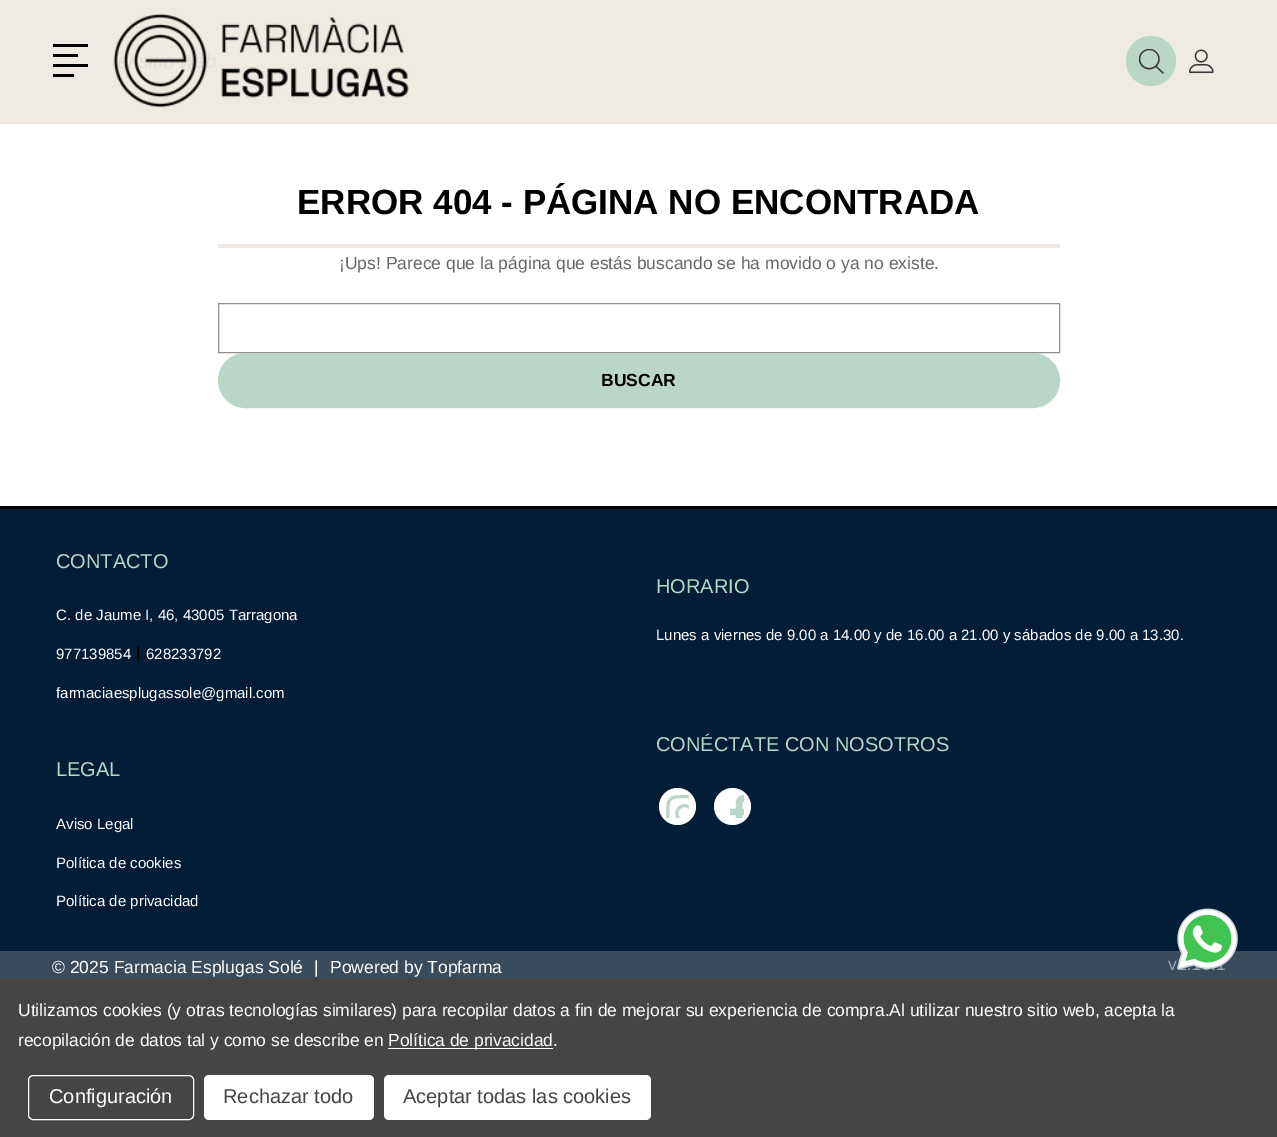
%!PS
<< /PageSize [1277 1137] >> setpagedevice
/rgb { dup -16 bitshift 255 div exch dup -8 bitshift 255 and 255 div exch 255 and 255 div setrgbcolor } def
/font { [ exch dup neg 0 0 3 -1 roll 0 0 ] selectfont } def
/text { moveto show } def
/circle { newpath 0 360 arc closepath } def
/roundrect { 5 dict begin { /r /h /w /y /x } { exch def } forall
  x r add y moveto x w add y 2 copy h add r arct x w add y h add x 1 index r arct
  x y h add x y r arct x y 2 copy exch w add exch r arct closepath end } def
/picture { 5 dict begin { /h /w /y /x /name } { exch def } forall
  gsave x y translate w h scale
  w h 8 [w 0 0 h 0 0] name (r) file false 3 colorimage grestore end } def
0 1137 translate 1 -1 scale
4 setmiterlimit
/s1 { /LiberationSans-Bold 35 font 16#000000 rgb } def
/s2 { /LiberationSans-Regular 17.5 font 16#666666 rgb } def
/s3 { /LiberationSans-Bold 17.5 font 16#000000 rgb } def
/s4 { /LiberationSans-Regular 20 font 16#BAD6C7 rgb } def
/s5 { /LiberationSans-Regular 15 font 16#FFFFFF rgb } def
/s6 { /LiberationSans-Regular 17.5 font 16#000000 rgb } def
/s7 { /LiberationSans-Regular 17.5 font 16#FFFFFF rgb } def
/s8 { /LiberationSans-Regular 17.5 font 16#9CA6AF rgb } def
/s9 { /LiberationSans-Regular 20 font 16#FFFFFF rgb } def
/s10 { /LiberationSans-Regular 20 font 16#454545 rgb } def
16#FFFFFF rgb
0 0 1277 1137 rectfill
16#EFEAE2 rgb
0 0 1277 123 rectfill
16#000000 rgb
53 44 35 3 rectfill
53 54 25 3 rectfill
53 64 35 3 rectfill
53 74 21 3 rectfill
(pic1.raw) 113 13 296 95 picture
16#BAD6C7 rgb
1151 61 25 circle fill
(pic2.raw) 1139 49 25 25 picture
(pic3.raw) 1189 49 25 25 picture
16#E5E5E5 rgb
0 123 1277 1 rectfill
16#EFEAE2 rgb
218 244 842 4 rectfill
s1
(ERROR 404 - PÁGINA NO ENCONTRADA) 297 214 text
s2
(¡Ups! Parece que la página que estás buscando se ha movido o ya no existe.) 339 269 text
16#8F8F8F rgb
218.5 303.5 841 49 rectstroke
16#BAD6C7 rgb
219.5 354.5 839 52 26 roundrect gsave fill grestore
3 setlinewidth
stroke
s3
(BUSCAR) 601 386 text
16#031D37 rgb
0 509 1277 442 rectfill
16#000000 rgb
0 506 1277 3 rectfill
s4
(CONTACTO) 56 568 text
s5
(C. de Jaume I, 46, 43005 Tarragona) 56 620 text
(977139854) 56 659 text
s6
(|) 136 659 text
s5
(628233792) 146 659 text
(farmaciaesplugassole@gmail.com) 56 698 text
s4
(HORARIO) 656 593 text
s5
(Lunes a viernes de 9.00 a 14.00 y de 16.00 a 21.00 y sábados de 9.00 a 13.30.) 656 640 text
s4
(CONÉCTATE CON NOSOTROS) 656 751 text
16#FFFFFF rgb
677.5 806.5 18.5 circle fill
(pic4.raw) 666 795 23 23 picture
732.5 806.5 18.5 circle fill
(pic5.raw) 730 795 14 23 picture
s4
(LEGAL) 56 776 text
s5
(Aviso Legal) 56 829 text
(Política de cookies) 56 868 text
(Política de privacidad) 56 906 text
16#394C5E rgb
0 951 1277 27 rectfill
s7
(© 2025 Farmacia Esplugas Solé) 52 973 text
(|) 314 973 text
(Powered by Topfarma) 330 973 text
s8
(v1.) 1168 970 text
(.) 1211 970 text
(pic6.raw) 1177 908 61 62 picture
16#454545 rgb
0 978 1277 159 rectfill
16#FFFFFF rgb
18 1016 moveto -0.06 0 (Utilizamos cookies \(y otras tecnologías similares\) para recopilar datos a fin de mejorar su experiencia de compra.Al utilizar nuestro sitio web, acepta la) ashow
18 1046 moveto -0.06 0 (recopilación de datos tal y como se describe en) ashow
388 1048 165 1 rectfill
388 1046 moveto -0.06 0 (Política de privacidad.) ashow
1 setlinewidth
28.5 1075.5 165 44 4.5 roundrect stroke
s9
(Configuración) 49 1103 text
204 1075 170 45 5 roundrect fill
s10
(Rechazar todo) 223 1103 text
16#FFFFFF rgb
384 1075 267 45 5 roundrect fill
s10
(Aceptar todas las cookies) 403 1103 text
showpage
